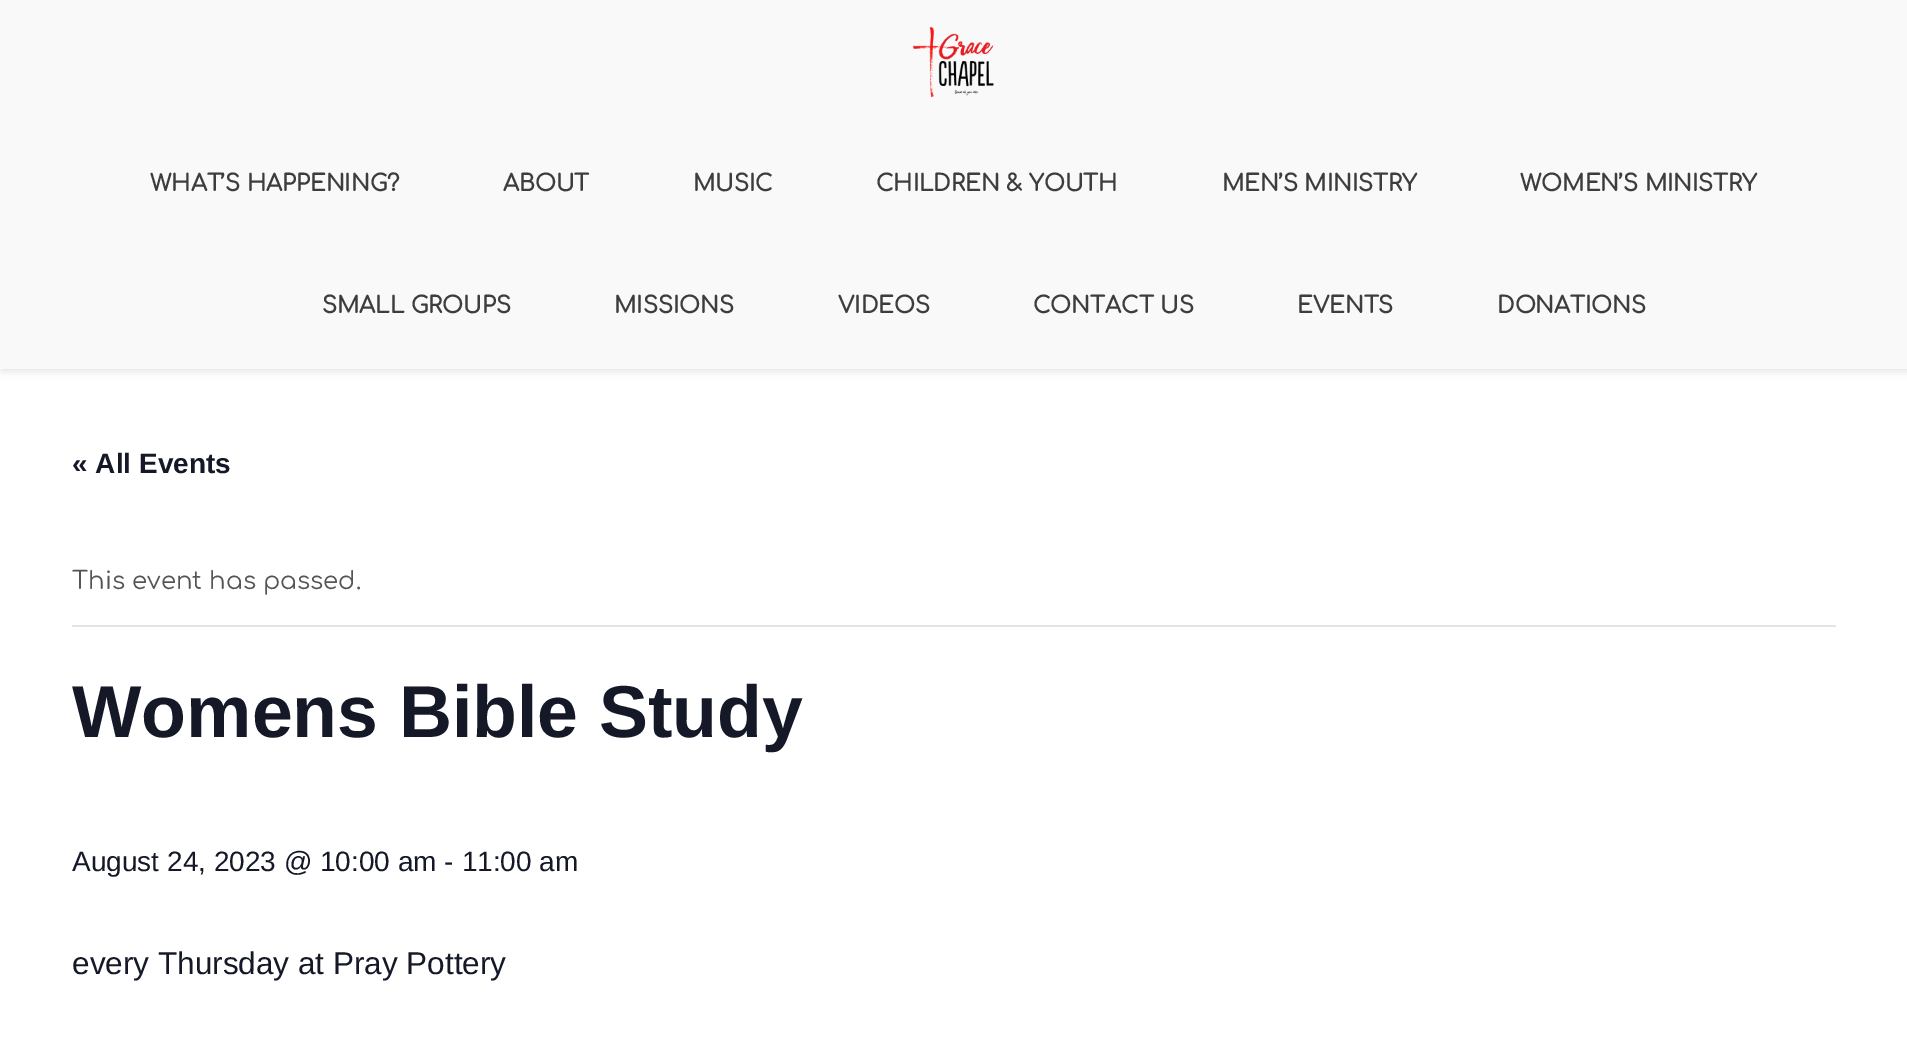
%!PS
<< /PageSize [1907 1058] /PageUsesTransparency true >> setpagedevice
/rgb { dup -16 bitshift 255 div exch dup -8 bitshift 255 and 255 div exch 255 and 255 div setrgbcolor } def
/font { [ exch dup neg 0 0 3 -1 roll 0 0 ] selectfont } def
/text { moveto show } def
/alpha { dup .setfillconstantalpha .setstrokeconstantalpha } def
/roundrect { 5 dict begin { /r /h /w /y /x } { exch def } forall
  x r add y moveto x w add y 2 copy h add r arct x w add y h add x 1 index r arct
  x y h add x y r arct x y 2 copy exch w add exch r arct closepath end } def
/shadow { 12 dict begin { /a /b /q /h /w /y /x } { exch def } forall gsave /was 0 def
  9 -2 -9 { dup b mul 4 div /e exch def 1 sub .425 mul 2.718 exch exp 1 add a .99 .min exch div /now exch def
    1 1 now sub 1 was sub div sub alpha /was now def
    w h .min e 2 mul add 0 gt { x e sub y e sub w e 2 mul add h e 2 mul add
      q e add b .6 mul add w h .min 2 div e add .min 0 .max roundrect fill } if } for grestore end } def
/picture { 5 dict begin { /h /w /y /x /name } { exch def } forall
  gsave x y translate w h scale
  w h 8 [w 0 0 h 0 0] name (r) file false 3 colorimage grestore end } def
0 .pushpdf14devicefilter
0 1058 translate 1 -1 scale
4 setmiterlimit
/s1 { /Comfortaa-Bold 22.75 font 16#3D3D3D rgb } def
/s2 { /LiberationSans-Bold 28 font 16#141827 rgb } def
/s3 { /Comfortaa-Regular 24.5 font 16#555555 rgb } def
/s4 { /LiberationSans-Bold 73.5 font 16#141827 rgb } def
/s5 { /LiberationSans-Regular 28 font 16#141827 rgb } def
/s6 { /LiberationSans-Regular 31.5 font 16#141827 rgb } def
16#FFFFFF rgb
0 0 1907 1058 rectfill
16#646464 rgb
2 2 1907 369 0 4.5 0.2 shadow
16#F9F9F9 rgb
0 0 1907 369 rectfill
(pic1.raw) 913 27 81 71 picture
s1
(WHAT’S HAPPENING?) 150 191 text
(ABOUT) 503 191 text
(MUSIC) 693 191 text
(CHILDREN & YOUTH) 876 191 text
(MEN’S MINISTRY) 1222 191 text
(WOMEN’S MINISTRY) 1520 191 text
(SMALL GROUPS) 322 313 text
(MISSIONS) 614 313 text
(VIDEOS) 838 313 text
(CONTACT US) 1033 313 text
(EVENTS) 1297 313 text
(DONATIONS) 1497 313 text
s2
(« All Events) 72 473 text
16#E4E4E4 rgb
72 625 1764 2 rectfill
s3
(This event has passed.) 72 589 text
s4
(Womens Bible Study) 72 737 text
s5
(August 24, 2023 @ 10:00 am - 11:00 am) 72 871 text
s6
(every Thursday at Pray Pottery) 72 974 text
.poppdf14devicefilter showpage
